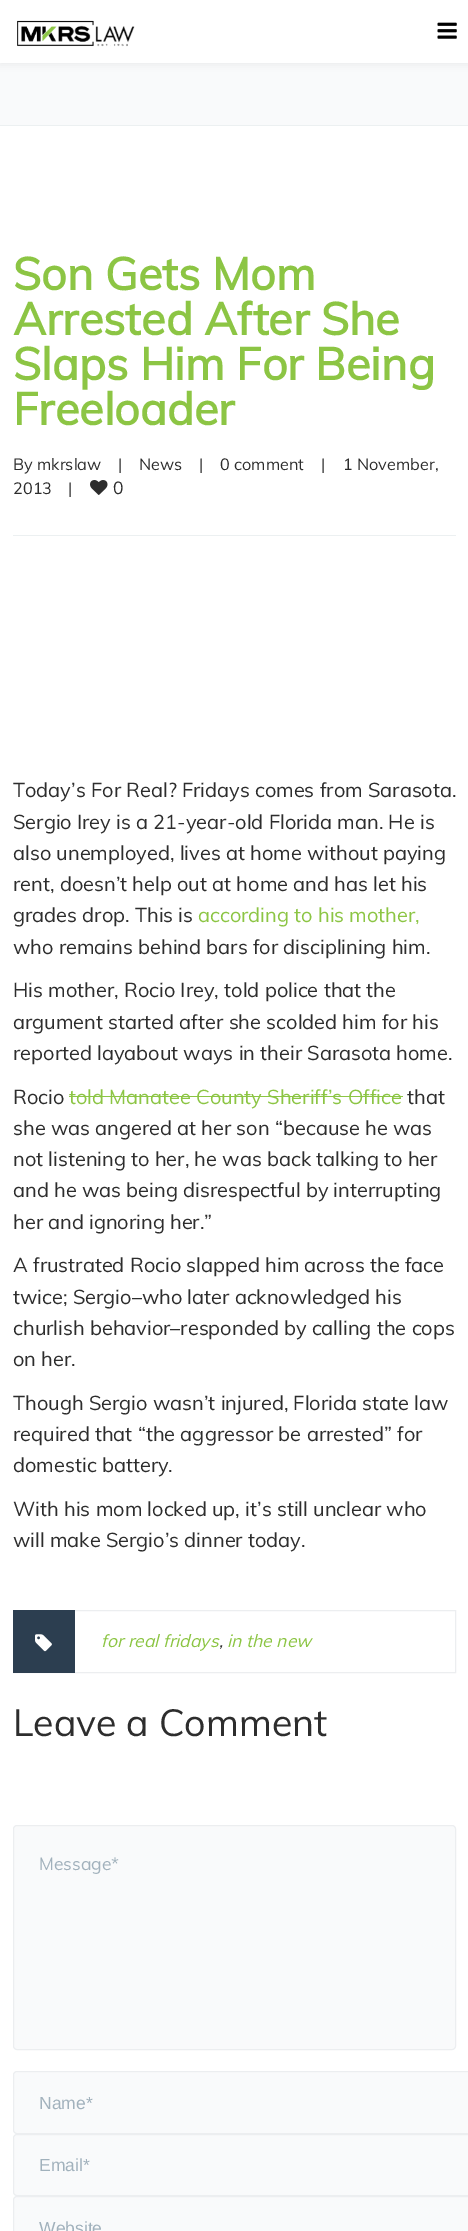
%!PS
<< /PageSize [468 2231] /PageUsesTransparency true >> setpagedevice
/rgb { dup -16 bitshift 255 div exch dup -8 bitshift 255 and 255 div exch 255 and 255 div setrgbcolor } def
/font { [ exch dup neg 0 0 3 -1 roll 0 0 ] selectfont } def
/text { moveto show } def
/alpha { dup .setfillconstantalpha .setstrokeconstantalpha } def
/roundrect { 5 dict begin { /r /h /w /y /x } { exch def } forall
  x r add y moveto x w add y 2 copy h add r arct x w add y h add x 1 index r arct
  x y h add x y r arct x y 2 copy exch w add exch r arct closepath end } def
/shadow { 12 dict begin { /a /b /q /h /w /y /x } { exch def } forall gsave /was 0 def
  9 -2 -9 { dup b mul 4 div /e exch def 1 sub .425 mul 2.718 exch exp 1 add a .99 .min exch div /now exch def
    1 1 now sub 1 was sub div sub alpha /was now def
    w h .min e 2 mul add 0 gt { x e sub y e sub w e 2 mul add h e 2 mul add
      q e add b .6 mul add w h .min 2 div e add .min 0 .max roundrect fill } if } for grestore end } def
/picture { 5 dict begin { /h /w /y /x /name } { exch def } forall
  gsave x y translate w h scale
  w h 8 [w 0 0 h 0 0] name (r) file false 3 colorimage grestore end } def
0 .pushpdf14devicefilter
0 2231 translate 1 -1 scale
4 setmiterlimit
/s1 { /Muli-Bold 45 font 16#8CC544 rgb } def
/s2 { /Muli-Regular 16.25 font 16#2D2D2D rgb } def
/s3 { /Muli-Regular 17.5 font 16#2D2D2D rgb } def
/s4 { /Muli-Regular 20 font 16#2D2D2D rgb } def
/s5 { /Muli-Regular 20 font 16#8CC544 rgb } def
/s6 { /Muli-Italic 17.5 font 16#8CC544 rgb } def
/s7 { /Muli-Italic 17.5 font 16#2D2D2D rgb } def
/s8 { /Muli-Regular 37.5 font 16#2D2D2D rgb } def
/s9 { /Muli-Regular 17.5 font 16#A1B1BC rgb } def
/s10 { /LiberationSans-Regular 17.5 font 16#A1B1BC rgb } def
16#FFFFFF rgb
0 0 468 2231 rectfill
16#F9FAFB rgb
0 63 468 62 rectfill
16#000000 rgb
0 3 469 62 0 4 0.05 shadow
16#FFFFFF rgb
0 0 468 63 rectfill
(pic1.raw) 17 20 118 27 picture
(pic2.raw) 437 22 20 17 picture
16#ECF0F1 rgb
0 125 468 1 rectfill
s1
(Son Gets Mom) 13 290 text
(Arrested After She) 13 335 text
(Slaps Him For Being) 13 380 text
(Freeloader) 13 425 text
16#ECF0F1 rgb
13 535 443 1 rectfill
s2
(By mkrslaw) 13 470 text
(|) 118 470 text
(News) 139 470 text
(|) 199 470 text
(0 comment) 220 470 text
(|) 321 470 text
(1 November,) 343 470 text
(2013) 13 494 text
(|) 68 494 text
(pic3.raw) 90 480 18 15 picture
s3
(0) 113 494 text
s4
(Today’s For Real? Fridays comes from Sarasota.) 13 797 text
(Sergio Irey is a 21-year-old Florida man. He is) 13 829 text
(also unemployed, lives at home without paying) 13 860 text
(rent, doesn’t help out at home and has let his) 13 891 text
(grades drop. This is) 13 922 text
s5
(according to his mother,) 198 922 text
s4
(who remains behind bars for disciplining him.) 13 954 text
(His mother, Rocio Irey, told police that the) 13 997 text
(argument started after she scolded him for his) 13 1029 text
(reported layabout ways in their Sarasota home.) 13 1060 text
(Rocio) 13 1104 text
s5
(told Manatee County Sheriff’s Office) 69 1104 text
69 1096 334 1 rectfill
s4
(that) 407 1104 text
(she was angered at her son “because he was) 13 1135 text
(not listening to her, he was back talking to her) 13 1166 text
(and he was being disrespectful by interrupting) 13 1197 text
(her and ignoring her.”) 13 1229 text
(A frustrated Rocio slapped him across the face) 13 1272 text
(twice; Sergio–who later acknowledged his) 13 1304 text
(churlish behavior–responded by calling the cops) 13 1335 text
(on her.) 13 1366 text
(Though Sergio wasn’t injured, Florida state law) 13 1410 text
(required that “the aggressor be arrested” for) 13 1441 text
(domestic battery.) 13 1472 text
(With his mom locked up, it’s still unclear who) 13 1516 text
(will make Sergio’s dinner today.) 13 1547 text
16#ECEEF0 rgb
13.5 1610.5 442 62 rectstroke
16#2C3E50 rgb
13 1610 62 63 rectfill
(pic4.raw) 35 1634 17 18 picture
s6
(for real fridays) 101 1647 text
s7
(,) 219 1647 text
s6
(in the new) 227 1647 text
s8
(Leave a Comment) 13 1736 text
16#F9FAFB rgb
13.5 1825.5 442 224 3.5 roundrect gsave fill grestore
16#ECEEF0 rgb
stroke
s9
(Message*) 39 1870 text
16#F9FAFB rgb
17 2071 moveto 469 2071 lineto 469 2134 lineto 17 2134 lineto 15 2134 13 2132 13 2130 curveto 13 2075 lineto 13 2073 15 2071 17 2071 curveto closepath fill
16#ECEEF0 rgb
13.5 2071.5 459 62 3.5 roundrect stroke
s10
(Name*) 39 2109 text
16#F9FAFB rgb
17 2134 moveto 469 2134 lineto 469 2196 lineto 17 2196 lineto 15 2196 13 2194 13 2192 curveto 13 2138 lineto 13 2136 15 2134 17 2134 curveto closepath fill
16#ECEEF0 rgb
13.5 2134.5 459 61 3.5 roundrect stroke
s10
(Email*) 39 2171 text
16#F9FAFB rgb
17 2196 moveto 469 2196 lineto 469 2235 lineto 17 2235 lineto 15 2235 13 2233 13 2231 curveto 13 2200 lineto 13 2198 15 2196 17 2196 curveto closepath fill
16#ECEEF0 rgb
13.5 2196.5 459 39 3.5 roundrect stroke
s10
(Website) 39 2234 text
.poppdf14devicefilter showpage
